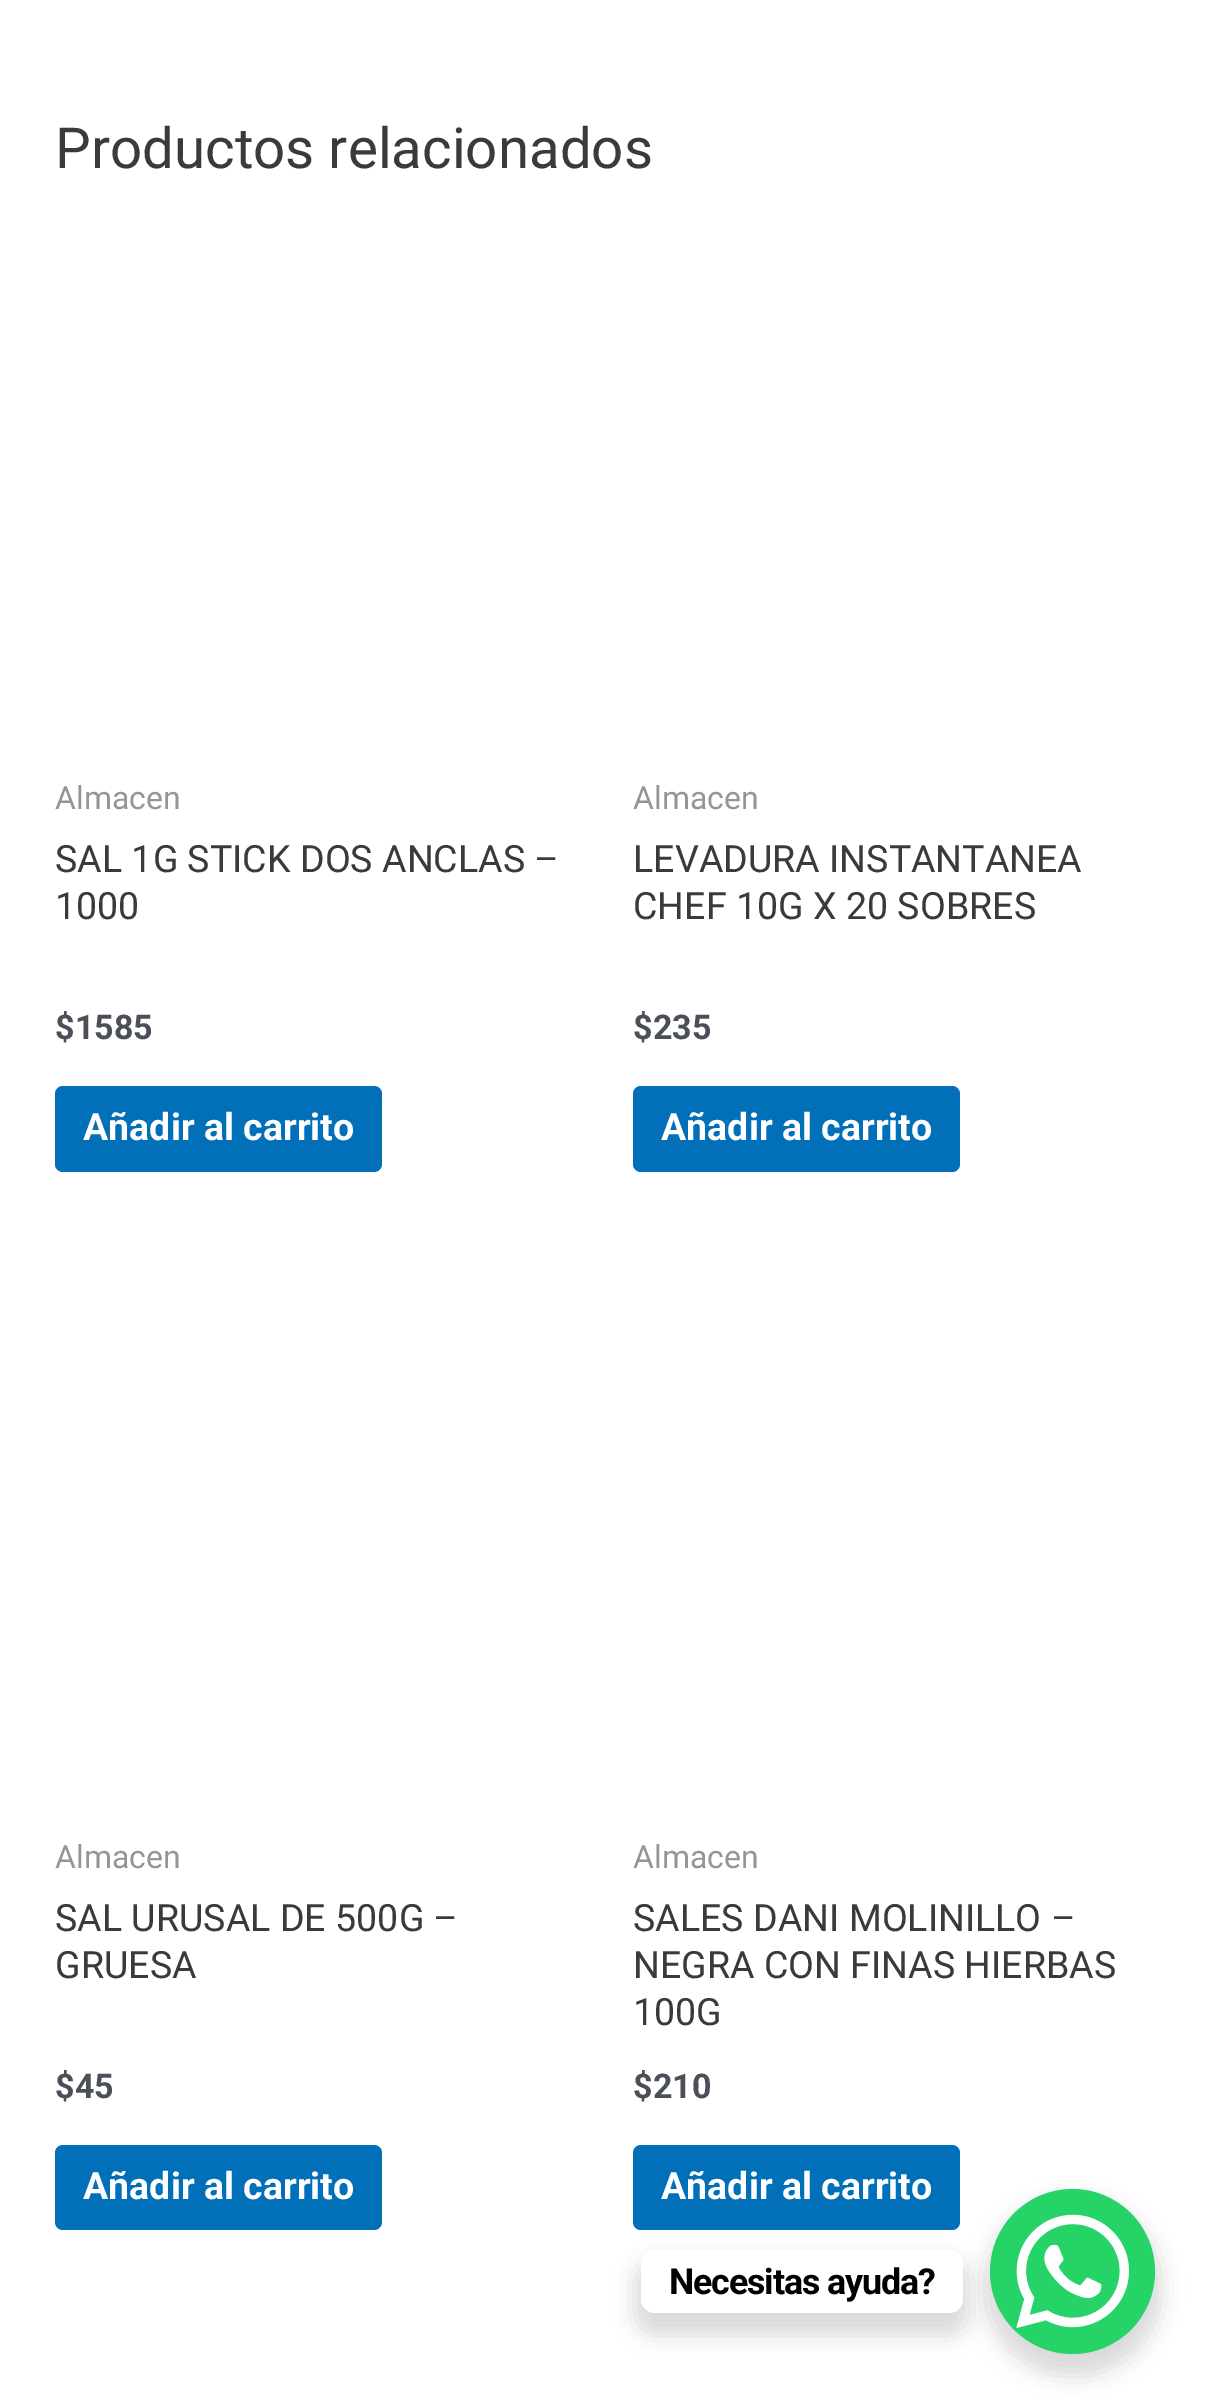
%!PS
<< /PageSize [1210 2407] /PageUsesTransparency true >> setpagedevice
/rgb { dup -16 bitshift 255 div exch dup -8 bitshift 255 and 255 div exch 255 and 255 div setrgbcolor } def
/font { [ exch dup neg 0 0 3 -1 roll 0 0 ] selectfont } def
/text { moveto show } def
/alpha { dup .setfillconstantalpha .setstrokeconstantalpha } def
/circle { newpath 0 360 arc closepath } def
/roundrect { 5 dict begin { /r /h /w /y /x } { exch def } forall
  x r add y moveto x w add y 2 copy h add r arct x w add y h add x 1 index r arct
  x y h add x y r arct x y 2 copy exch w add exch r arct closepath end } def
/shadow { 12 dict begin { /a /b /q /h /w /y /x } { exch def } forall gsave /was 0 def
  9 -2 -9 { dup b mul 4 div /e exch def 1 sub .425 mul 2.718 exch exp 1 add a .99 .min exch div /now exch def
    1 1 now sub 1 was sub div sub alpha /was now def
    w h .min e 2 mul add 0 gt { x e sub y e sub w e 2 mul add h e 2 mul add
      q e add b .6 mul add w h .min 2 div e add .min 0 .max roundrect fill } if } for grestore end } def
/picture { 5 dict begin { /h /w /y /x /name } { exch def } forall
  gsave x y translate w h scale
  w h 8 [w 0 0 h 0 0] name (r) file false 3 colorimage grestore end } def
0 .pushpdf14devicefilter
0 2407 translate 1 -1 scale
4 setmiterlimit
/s1 { /Roboto-Regular 56.5 font 16#3A3A3A rgb } def
/s2 { /Roboto-Regular 32 font 16#93959B rgb } def
/s3 { /Roboto-Regular 37.6 font 16#3A3A3A rgb } def
/s4 { /Roboto-Bold 34 font 16#4B4F58 rgb } def
/s5 { /Roboto-Bold 37.6 font 16#FFFFFF rgb } def
16#FFFFFF rgb
0 0 1210 2407 rectfill
s1
(Productos relacionados) 55 168 text
s2
(Almacen) 55 809 text
s3
(SAL 1G STICK DOS ANCLAS –) 55 872 text
(1000) 55 919 text
s4
($1585) 55 1039 text
16#0170B9 rgb
55 1086 327 86 8 roundrect fill
s5
(Añadir al carrito) 83 1140 text
s2
(Almacen) 633 809 text
s3
(LEVADURA INSTANTANEA) 633 872 text
(CHEF 10G X 20 SOBRES) 633 919 text
s4
($235) 633 1039 text
16#0170B9 rgb
633 1086 327 86 8 roundrect fill
s5
(Añadir al carrito) 661 1140 text
s2
(Almacen) 55 1868 text
s3
(SAL URUSAL DE 500G –) 55 1931 text
(GRUESA) 55 1978 text
s4
($45) 55 2098 text
16#0170B9 rgb
55 2145 327 85 8 roundrect fill
s5
(Añadir al carrito) 83 2199 text
s2
(Almacen) 633 1868 text
s3
(SALES DANI MOLINILLO –) 633 1931 text
(NEGRA CON FINAS HIERBAS) 633 1978 text
(100G) 633 2025 text
s4
($210) 633 2098 text
16#0170B9 rgb
633 2145 327 85 8 roundrect fill
s5
(Añadir al carrito) 661 2199 text
16#000000 rgb
985 2200 176 176 88 11 0.15 shadow
16#25D366 rgb
1072.5 2271.5 82.5 circle fill
16#000000 rgb
635 2261 333 74 19 11 0.15 shadow
16#FFFFFF rgb
641 2250 322 63 14 roundrect fill
/Roboto-Bold 35.75 font
16#000000 rgb
669 2294 moveto -1.1 0 (Necesitas ayuda?) ashow
(pic1.raw) 1016 2214 114 115 picture
.poppdf14devicefilter showpage
